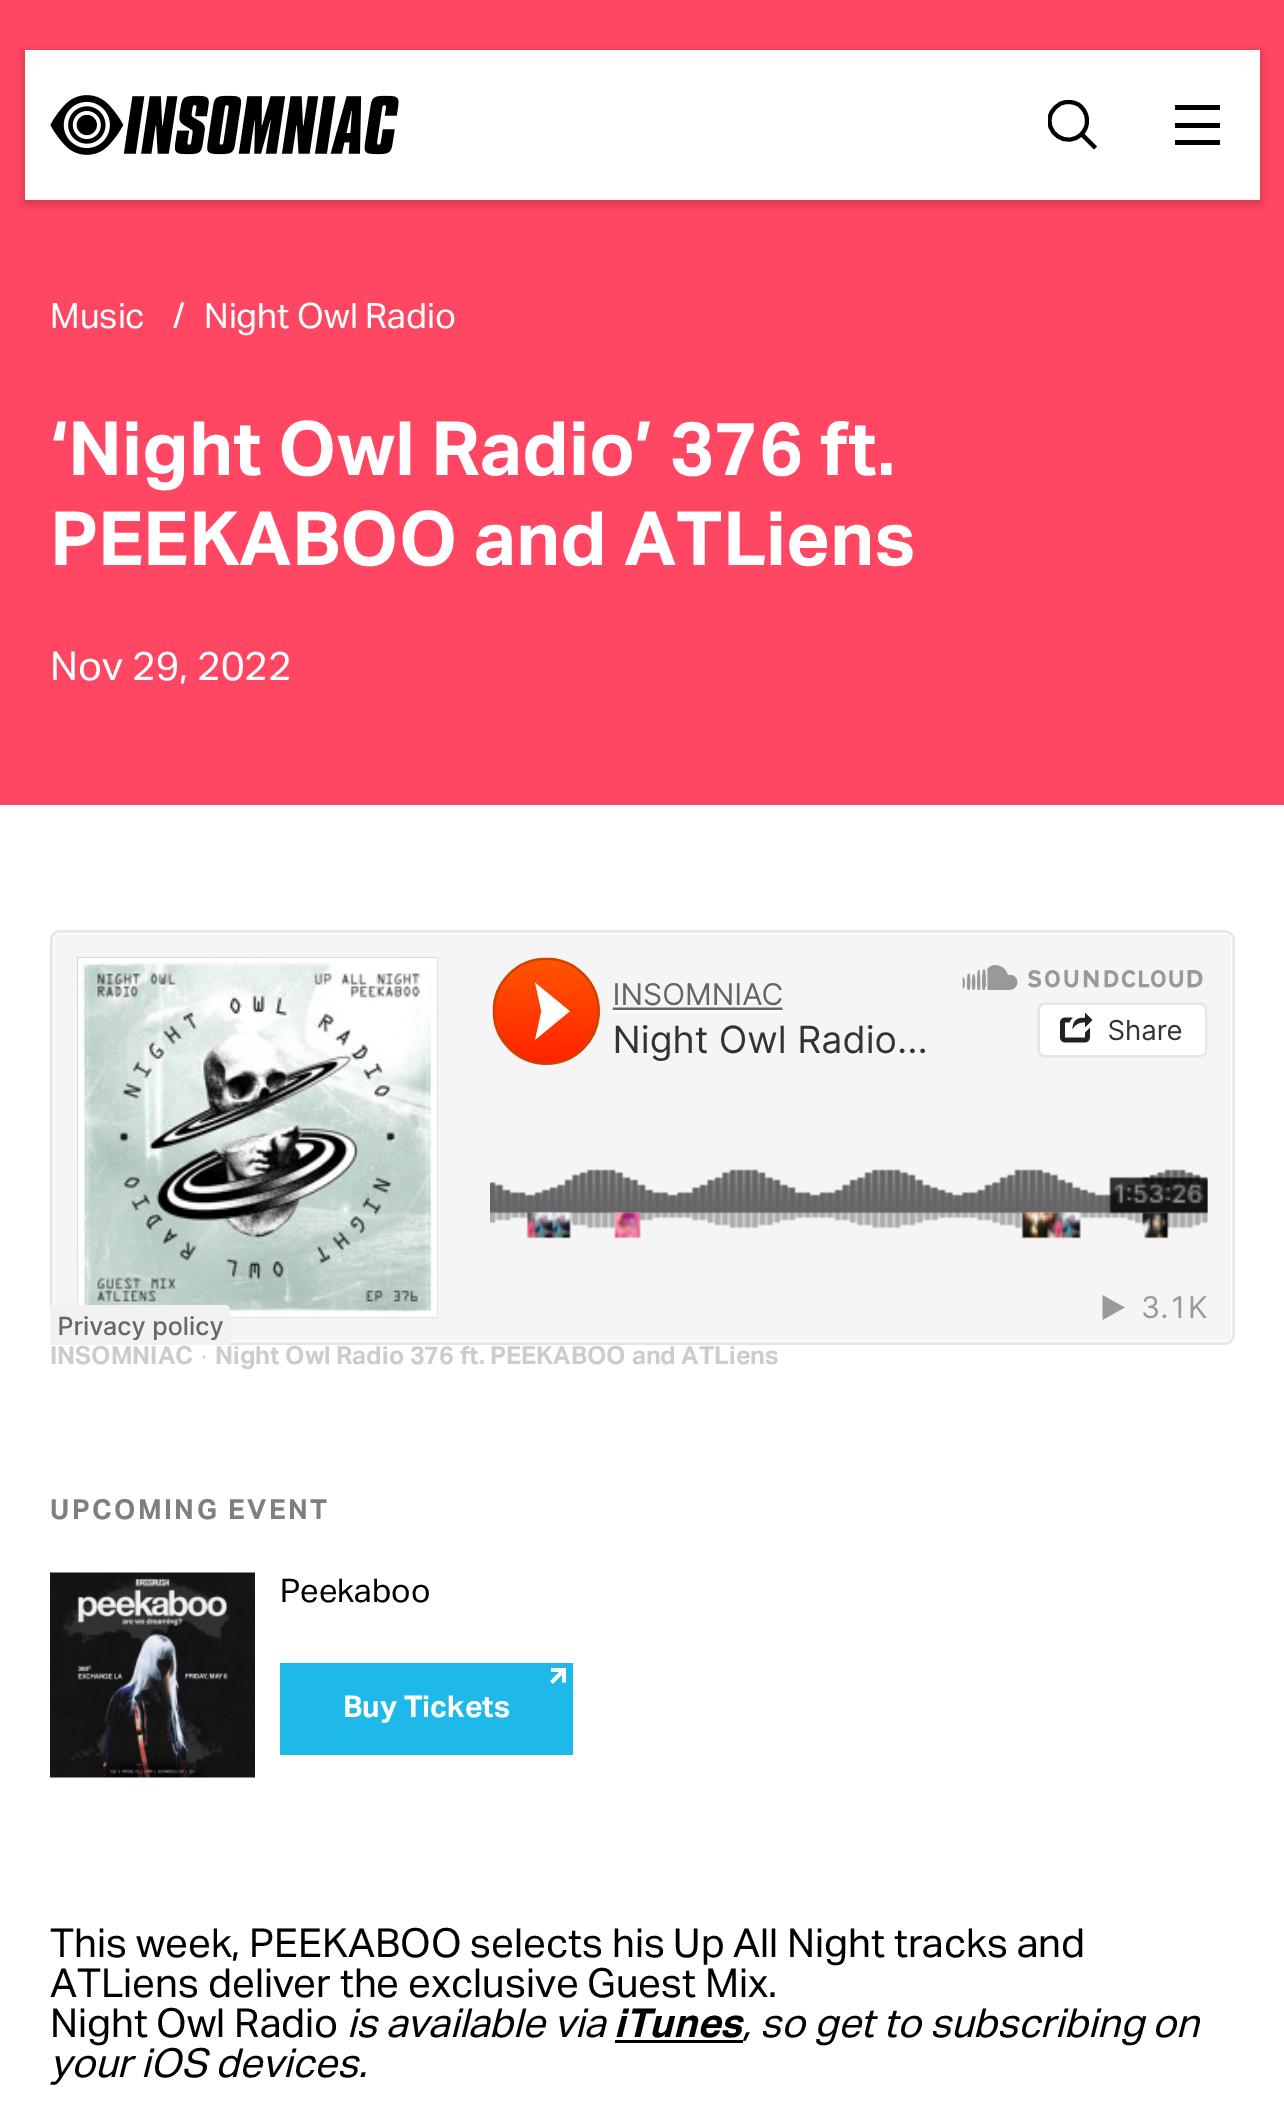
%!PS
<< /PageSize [1284 2113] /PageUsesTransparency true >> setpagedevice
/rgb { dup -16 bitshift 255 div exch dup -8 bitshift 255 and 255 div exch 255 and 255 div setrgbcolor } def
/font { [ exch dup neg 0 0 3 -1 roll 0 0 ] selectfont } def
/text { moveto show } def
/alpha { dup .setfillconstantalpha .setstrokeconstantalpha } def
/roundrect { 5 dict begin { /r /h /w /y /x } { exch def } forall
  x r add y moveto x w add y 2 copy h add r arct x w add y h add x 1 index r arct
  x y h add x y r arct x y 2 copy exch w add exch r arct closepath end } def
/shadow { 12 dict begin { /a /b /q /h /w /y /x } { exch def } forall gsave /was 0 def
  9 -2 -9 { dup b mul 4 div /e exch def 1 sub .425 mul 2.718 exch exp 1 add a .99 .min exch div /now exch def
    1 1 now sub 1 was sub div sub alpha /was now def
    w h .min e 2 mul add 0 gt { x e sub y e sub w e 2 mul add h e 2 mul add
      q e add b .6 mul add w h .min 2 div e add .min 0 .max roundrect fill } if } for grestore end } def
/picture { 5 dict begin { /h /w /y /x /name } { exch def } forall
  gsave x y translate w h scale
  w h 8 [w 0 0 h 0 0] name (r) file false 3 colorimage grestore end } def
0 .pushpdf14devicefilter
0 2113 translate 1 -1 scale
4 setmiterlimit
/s1 { /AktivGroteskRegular-Regular 35 font 16#FFFFFF rgb } def
/s2 { /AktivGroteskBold-Regular 75 font 16#FFFFFF rgb } def
/s3 { /AktivGroteskRegular-Regular 40 font 16#FFFFFF rgb } def
/s4 { /AktivGroteskBold-Regular 25 font 16#CCCCCC rgb } def
/s5 { /LiberationSans-Regular 25 font 16#CCCCCC rgb } def
/s6 { /AktivGroteskRegular-Regular 32.5 font 16#000000 rgb } def
/s7 { /AktivGroteskBold-Regular 30 font 16#FFFFFF rgb } def
/s8 { /AktivGroteskRegular-Regular 40 font 16#000000 rgb } def
/s9 { /AktivGroteskRegular-Italic 40 font 16#000000 rgb } def
/s10 { /AktivGroteskBold-Italic 40 font 16#000000 rgb } def
16#FFFFFF rgb
0 0 1284 2113 rectfill
16#FF4663 rgb
0 0 1284 805 rectfill
16#000000 rgb
25 53 1235 150 0 5 0.2 shadow
16#FFFFFF rgb
25 50 1235 150 rectfill
(pic1.raw) 50 95 349 60 picture
gsave
1048 100 50 50 rectclip
16#000000 rgb
4 setlinewidth
1081.5 134 moveto 1090 126 1088.5 112 1079 105 curveto 1073.5 101.5 1067 101 1061 103.5 curveto 1056.5 105.5 1053 109 1051 113.5 curveto 1043 133 1067.5 148.5 1081.5 134 curveto 1095.5 148 lineto closepath stroke
grestore
16#000000 rgb
1175 123 45 5 rectfill
1175 105 45 5 rectfill
1175 140 45 5 rectfill
s1
(Music) 50 328 text
(/) 173 328 text
(Night Owl Radio) 204 328 text
s2
(‘Night Owl Radio’ 376 ft.) 50 475 text
(PEEKABOO and ATLiens) 50 565 text
s3
(Nov 29, 2022) 50 680 text
(pic2.raw) 50 930 1185 415 picture
s4
(INSOMNIAC) 50 1364 text
s5
(·) 200 1364 text
s4
(Night Owl Radio 376 ft. PEEKABOO and ATLiens) 215 1364 text
/AktivGroteskBold-Regular 27.5 font
16#7F7F7F rgb
50 1519 moveto 2.5 0 (UPCOMING EVENT) ashow
(pic3.raw) 50 1572 205 206 picture
s6
(Peekaboo) 280 1602 text
16#1FB9E9 rgb
280 1663 293 92 rectfill
16#FFFFFF rgb
3.8 setlinewidth
551 1670 moveto 564 1670 lineto 564 1682.5 lineto 551.5 1682.5 moveto 564 1670 lineto stroke
s7
(Buy Tickets) 343 1717 text
s8
(This week, PEEKABOO selects his Up All Night tracks and) 50 1957 text
(ATLiens deliver the exclusive Guest Mix.) 50 1997 text
(Night Owl Radio) 50 2037 text
s9
(is available via) 347 2037 text
s10
(iTunes) 614 2037 text
615 2040 128 3 rectfill
s9
(, so get to subscribing on) 742 2037 text
(your iOS devices.) 50 2077 text
.poppdf14devicefilter showpage
